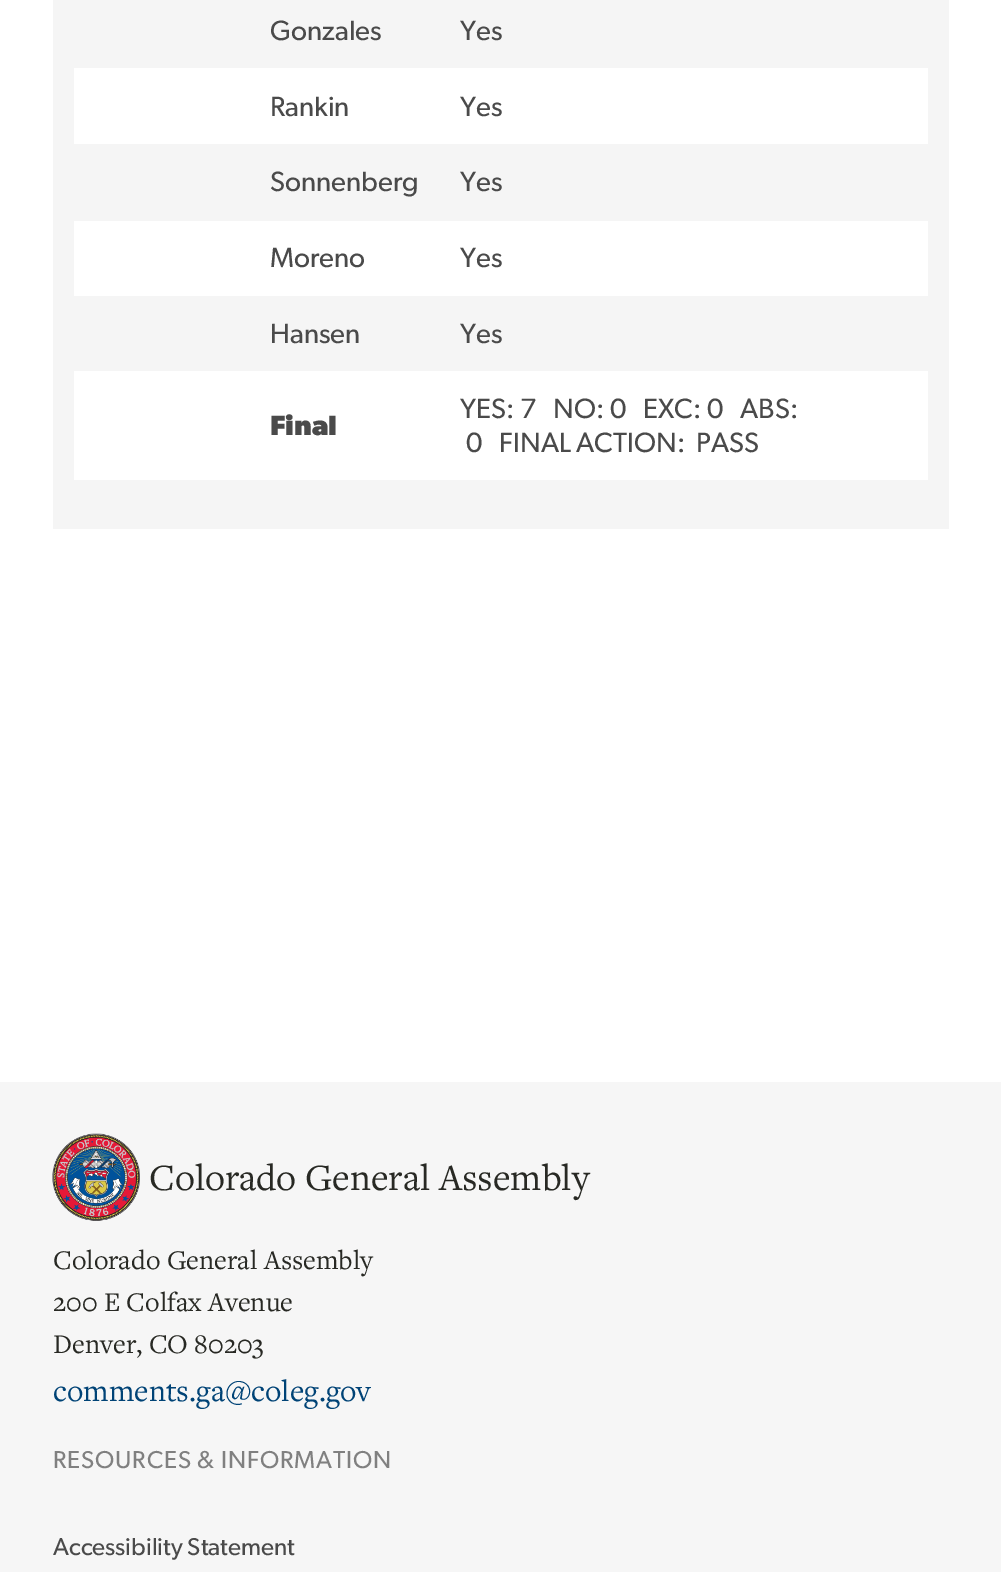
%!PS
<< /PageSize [1001 1572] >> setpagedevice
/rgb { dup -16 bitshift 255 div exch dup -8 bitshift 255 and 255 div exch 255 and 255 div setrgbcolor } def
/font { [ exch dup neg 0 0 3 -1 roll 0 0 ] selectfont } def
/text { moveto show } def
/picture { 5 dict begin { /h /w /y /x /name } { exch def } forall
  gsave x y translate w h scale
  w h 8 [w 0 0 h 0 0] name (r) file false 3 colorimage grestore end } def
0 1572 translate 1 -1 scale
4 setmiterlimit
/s1 { /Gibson-Regular 28 font 16#4A4A4A rgb } def
/s2 { /Gibson-Bold 28 font 16#4A4A4A rgb } def
/s3 { /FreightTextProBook-Regular 38.5 font 16#282924 rgb } def
/s4 { /FreightTextProBook-Regular 28 font 16#282924 rgb } def
/s5 { /FreightTextProBook-Regular 31.5 font 16#004376 rgb } def
/s6 { /Gibson-Regular 24.5 font 16#4A4A4A rgb } def
16#FFFFFF rgb
0 0 1001 1572 rectfill
16#F5F5F5 rgb
53 0 896 529 rectfill
16#FFFFFF rgb
74 68 854 412 rectfill
s1
(Gonzales) 270 40 text
(Yes) 460 40 text
(Rankin) 270 116 text
(Yes) 460 116 text
16#F5F5F5 rgb
74 144 854 77 rectfill
s1
(Sonnenberg) 270 191 text
(Yes) 460 191 text
(Moreno) 270 267 text
(Yes) 460 267 text
16#F5F5F5 rgb
74 296 854 75 rectfill
s1
(Hansen) 270 343 text
(Yes) 460 343 text
s2
(Final) 270 435 text
s1
(YES: 7) 460 418 text
(NO: 0) 553 418 text
(EXC: 0) 643 418 text
(ABS:) 740 418 text
(0) 466 452 text
(FINAL ACTION:) 499 452 text
(PASS) 696 452 text
16#F6F6F6 rgb
0 1082 1001 490 rectfill
(pic1.raw) 52 1133 88 88 picture
s3
(Colorado General Assembly) 149 1190 text
s4
(Colorado General Assembly) 53 1269 text
(200 E Colfax Avenue) 53 1311 text
(Denver, CO 80203) 53 1353 text
s5
(comments.ga@coleg.gov) 53 1401 text
/Gibson-Regular 24.5 font
16#808080 rgb
53 1468 moveto 0.9 0 (RESOURCES & INFORMATION) ashow
s6
(Accessibility Statement) 53 1555 text
showpage
